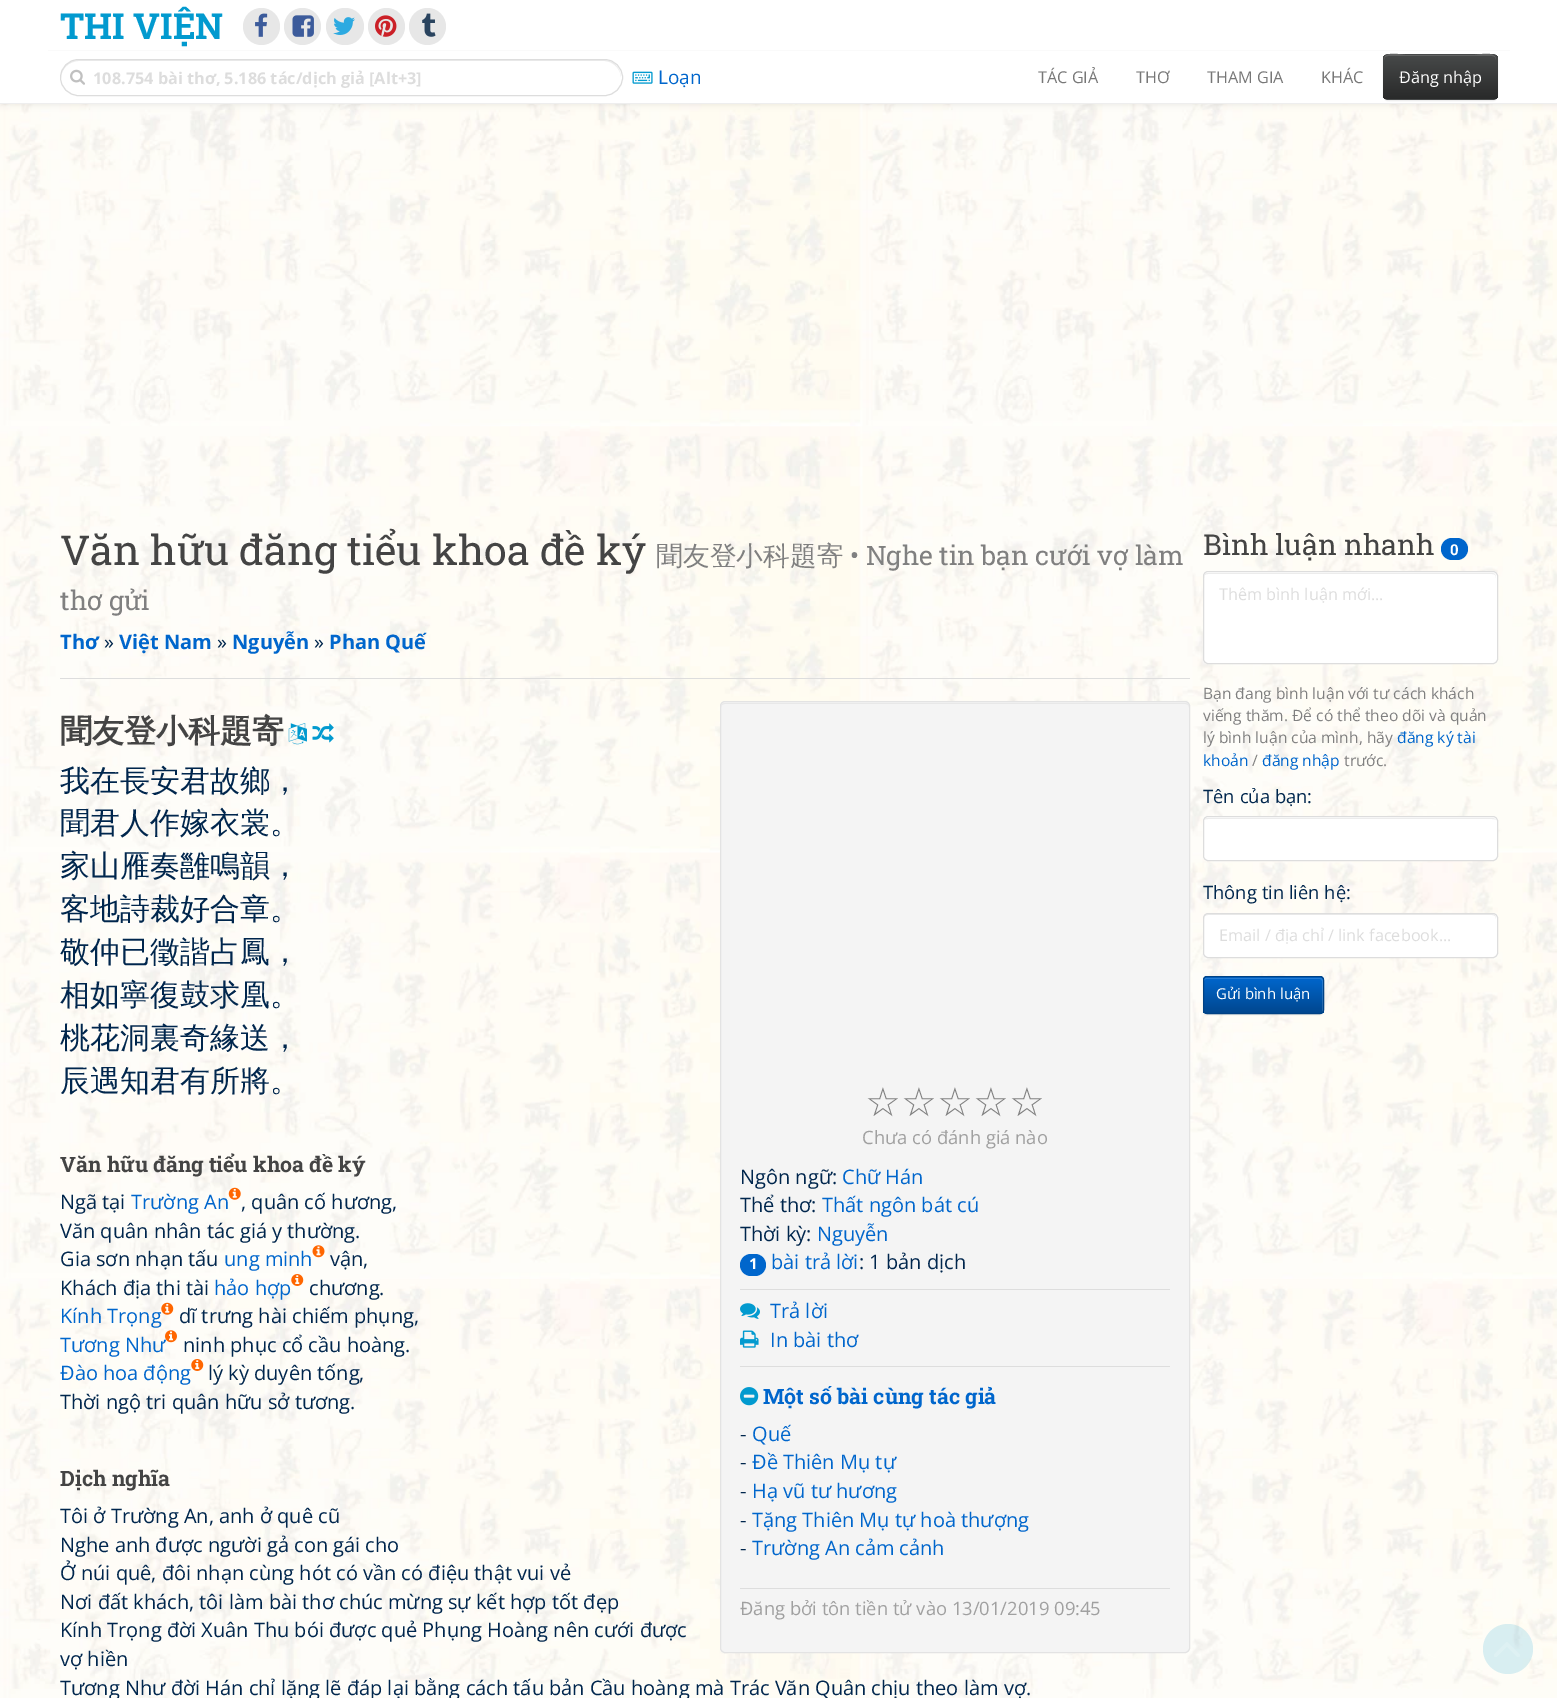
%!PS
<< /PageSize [1557 1698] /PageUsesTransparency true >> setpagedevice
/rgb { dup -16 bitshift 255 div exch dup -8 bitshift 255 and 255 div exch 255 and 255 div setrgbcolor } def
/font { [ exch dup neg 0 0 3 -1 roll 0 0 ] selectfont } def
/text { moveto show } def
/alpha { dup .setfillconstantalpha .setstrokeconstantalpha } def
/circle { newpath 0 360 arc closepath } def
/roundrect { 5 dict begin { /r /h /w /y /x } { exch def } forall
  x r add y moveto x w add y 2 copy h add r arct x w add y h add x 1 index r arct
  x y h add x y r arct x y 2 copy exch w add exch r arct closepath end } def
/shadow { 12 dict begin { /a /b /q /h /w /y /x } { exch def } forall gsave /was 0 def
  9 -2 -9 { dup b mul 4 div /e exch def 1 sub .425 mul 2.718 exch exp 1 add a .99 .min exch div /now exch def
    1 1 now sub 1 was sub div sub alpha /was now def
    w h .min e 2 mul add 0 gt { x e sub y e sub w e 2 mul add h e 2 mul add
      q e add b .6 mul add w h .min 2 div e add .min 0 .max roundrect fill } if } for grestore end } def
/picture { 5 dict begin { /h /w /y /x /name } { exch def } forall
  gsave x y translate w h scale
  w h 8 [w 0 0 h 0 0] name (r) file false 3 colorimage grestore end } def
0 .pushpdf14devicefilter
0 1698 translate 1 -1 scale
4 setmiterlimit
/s1 { /RobotoSlab-Bold 35.75 font 16#029ACF rgb } def
/s2 { /OpenSans-Bold 16.25 font 16#DDDDDD rgb } def
/s3 { /OpenSans-Regular 19 font 16#0066CC rgb } def
/s4 { /OpenSans-Regular 16.25 font 16#777777 rgb } def
/s5 { /OpenSans-Regular 16.25 font 16#FFFFFF rgb } def
/s6 { /RobotoSlab-Regular 41.25 font 16#444444 rgb } def
/s7 { /WenQuanYiZenHei-Medium 26.75 font 16#808080 rgb } def
/s8 { /RobotoSlab-Regular 26.75 font 16#808080 rgb } def
/s9 { /OpenSans-Bold 20 font 16#0066CC rgb } def
/s10 { /OpenSans-Regular 20 font 16#00264D rgb } def
/s11 { /WenQuanYiZenHei-Bold 32 font 16#444444 rgb } def
/s12 { /WenQuanYiZenHei-Medium 30 font 16#00264D rgb } def
/s13 { /RobotoSlab-Bold 21.25 font 16#444444 rgb } def
/s14 { /OpenSans-Regular 20 font 16#0066CC rgb } def
/s15 { /DejaVuSans-Regular 40 font 16#808080 rgb } def
/s16 { /OpenSans-Regular 18.4 font 16#A0A0A0 rgb } def
/s17 { /OpenSans-Bold 15 font 16#FFFFFF rgb } def
/s18 { /RobotoSlab-Bold 21.25 font 16#0066CC rgb } def
/s19 { /RobotoSlab-Regular 28.75 font 16#444444 rgb } def
/s20 { /RobotoSlab-Bold 15 font 16#FFFFFF rgb } def
/s21 { /OpenSans-Regular 16.25 font 16#DDDDDD rgb } def
/s22 { /OpenSans-Regular 15.6 font 16#808080 rgb } def
/s23 { /OpenSans-Regular 15.6 font 16#0066CC rgb } def
/s24 { /OpenSans-Regular 18.4 font 16#00264D rgb } def
/s25 { /OpenSans-Regular 15 font 16#FFFFFF rgb } def
16#FFFFFF rgb
0 0 1557 1698 rectfill
(pic1.raw) 0 104 1557 1594 picture
16#000000 rgb
0 1 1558 104 0 3 0.07 shadow
16#FFFFFF rgb
0 0 1557 103 rectfill
16#EEEEEE rgb
0 103 1557 1 rectfill
16#FAFAFA rgb
48 50 1462 1 rectfill
s1
(THI VIỆN) 60 39 text
16#E7E7E7 rgb
261.5 26.5 18.5 circle fill
(pic2.raw) 255 13 13 24 picture
302.5 26.5 18.5 circle fill
(pic3.raw) 292 15 22 22 picture
326 8 38 37 18.5 roundrect fill
(pic4.raw) 333 17 22 18 picture
386.5 26.5 18.5 circle fill
(pic5.raw) 375 15 22 22 picture
427.5 26.5 18.5 circle fill
(pic6.raw) 422 13 14 24 picture
16#ECECEC rgb
79 61 moveto 604 61 lineto 613 61 621 69 621 78 curveto 621 68 613 60 604 60 curveto 78 60 lineto 75 60 72 61 69 63 curveto 64 66 61 72 61 78 curveto 61 69 69 61 79 61 curveto closepath fill
16#DDDDDD rgb
60.5 59.5 562 36 18 roundrect stroke
(pic7.raw) 70 69 15 16 picture
s2
(108.754 bài thơ, 5.186 tác/dịch giả [Alt+3]) 93 84 text
(pic8.raw) 632 71 21 13 picture
s3
(Loạn) 658 84 text
s4
(TÁC GIẢ) 1038 83 text
(THƠ) 1136 83 text
(THAM GIA) 1207 83 text
(KHÁC) 1321 83 text
16#000000 rgb
1383 55 115 46 5 0.5 0.07 shadow
16#474949 rgb
1383 54 115 46 5 roundrect fill
gsave
1383 54 115 46 5 roundrect clip newpath
gsave 1383 55 moveto 1498 55 lineto 1498 99 lineto 1383 99 lineto closepath clip newpath
<< /ShadingType 2 /ColorSpace /DeviceRGB /Coords [1440 55 1440 99] /Extend [true true] /Function << /FunctionType 2 /Domain [0 1] /C0 [0.278 0.286 0.286] /C1 [0.161 0.165 0.165] /N 1 >> >> shfill grestore
grestore
16#636464 rgb
1388 56 moveto 1492 56 lineto 1495 56 1496 58 1496 60 curveto 1496 50 1478 55 1475 55 curveto 1405 55 lineto 1402 55 1384 50 1384 60 curveto 1384 58 1385 56 1388 56 curveto closepath fill
s5
(Đăng nhập) 1399 83 text
0.15 alpha
16#029ACF rgb
1508 1649 25 circle fill
1 alpha
(pic9.raw) 1494 1642 26 15 picture
16#DDDDDD rgb
60 678 1130 1 rectfill
s6
(Văn hữu đăng tiểu khoa đề ký) 60 565 text
s7
(聞友登小科題寄) 656 565 text
s8
(• Nghe tin bạn cưới vợ làm) 850 565 text
(thơ gửi) 60 610 text
s9
(Thơ) 60 649 text
s10
(») 104 649 text
s9
(Việt Nam) 119 649 text
s10
(») 217 649 text
s9
(Nguyễn) 232 649 text
s10
(») 314 649 text
s9
(Phan Quế) 329 649 text
s11
(聞友登小科題寄) 60 742 text
(pic10.raw) 288 723 19 22 picture
(pic11.raw) 312 723 22 20 picture
s12
(我在長安君故鄉，) 60 791 text
(聞君人作嫁衣裳。) 60 833 text
(家山雁奏雝鳴韻，) 60 876 text
(客地詩裁好合章。) 60 919 text
(敬仲已徵諧占鳳，) 60 962 text
(相如寧復鼓求凰。) 60 1005 text
(桃花洞裏奇緣送，) 60 1048 text
(辰遇知君有所將。) 60 1091 text
s13
(Văn hữu đăng tiểu khoa đề ký) 60 1172 text
s10
(Ngã tại) 60 1209 text
s14
(Trường An) 131 1209 text
(pic12.raw) 228 1187 13 13 picture
s10
(, quân cố hương,) 241 1209 text
(Văn quân nhân tác giá y thường.) 60 1238 text
(Gia sơn nhạn tấu) 60 1266 text
s14
(ung minh) 224 1266 text
(pic13.raw) 312 1245 13 13 picture
s10
(vận,) 330 1266 text
(Khách địa thi tài) 60 1295 text
s14
(hảo hợp) 214 1295 text
(pic14.raw) 291 1274 13 12 picture
s10
(chương.) 309 1295 text
s14
(Kính Trọng) 60 1323 text
(pic15.raw) 161 1302 13 13 picture
s10
(dĩ trưng hài chiếm phụng,) 179 1323 text
s14
(Tương Như) 60 1352 text
(pic16.raw) 165 1330 12 13 picture
s10
(ninh phục cổ cầu hoàng.) 183 1352 text
s14
(Đào hoa động) 60 1380 text
(pic14.raw) 191 1359 13 12 picture
s10
(lý kỳ duyên tống,) 208 1380 text
(Thời ngộ tri quân hữu sở tương.) 60 1409 text
s13
(Dịch nghĩa) 60 1486 text
s10
(Tôi ở Trường An, anh ở quê cũ) 60 1523 text
(Nghe anh được người gả con gái cho) 60 1552 text
(Ở núi quê, đôi nhạn cùng hót có vần có điệu thật vui vẻ) 60 1580 text
(Nơi đất khách, tôi làm bài thơ chúc mừng sự kết hợp tốt đẹp) 60 1609 text
(Kính Trọng đời Xuân Thu bói được quẻ Phụng Hoàng nên cưới được) 60 1637 text
(vợ hiền) 60 1666 text
(Tương Như đời Hán chỉ lặng lẽ đáp lại bằng cách tấu bản Cầu hoàng mà Trác Văn Quân chịu theo làm vợ.) 60 1695 text
16#F4F4F4 rgb
720 701 470 952 5 roundrect fill
16#E8E8E8 rgb
725 704 moveto 1185 704 lineto 1187 704 1189 705 1189 708 curveto 1189 705 1188 703 1185 703 curveto 725 703 lineto 722 703 721 705 721 708 curveto 721 705 723 704 725 704 curveto closepath fill
16#E3E3E3 rgb
720.5 701.5 469 951 4.5 roundrect stroke
s15
(☆) 865 1116 text
(☆) 901 1116 text
(☆) 937 1116 text
(☆) 973 1116 text
(☆) 1009 1116 text
s16
(Chưa có đánh giá nào) 862 1144 text
s10
(Ngôn ngữ:) 740 1184 text
s14
(Chữ Hán) 842 1184 text
s10
(Thể thơ:) 740 1212 text
s14
(Thất ngôn bát cú) 822 1212 text
s10
(Thời kỳ:) 740 1241 text
s14
(Nguyễn) 817 1241 text
740 1254 26 22 11 roundrect fill
s17
(1) 749 1269 text
s14
(bài trả lời) 771 1269 text
s10
(: 1 bản dịch) 859 1269 text
16#DDDDDD rgb
740 1289 430 1 rectfill
(pic17.raw) 740 1303 20 16 picture
s14
(Trả lời) 770 1318 text
(pic18.raw) 740 1330 19 18 picture
(In bài thơ) 770 1347 text
16#DDDDDD rgb
740 1366 430 1 rectfill
(pic19.raw) 740 1387 19 19 picture
s18
(Một số bài cùng tác giả) 763 1404 text
s10
(-) 740 1441 text
s14
(Quế) 752 1441 text
s10
(-) 740 1469 text
s14
(Đề Thiên Mụ tự) 752 1469 text
s10
(-) 740 1498 text
s14
(Hạ vũ tư hương) 752 1498 text
s10
(-) 740 1527 text
s14
(Tặng Thiên Mụ tự hoà thượng) 752 1527 text
s10
(-) 740 1555 text
s14
(Trường An cảm cảnh) 752 1555 text
16#DDDDDD rgb
740 1588 430 1 rectfill
s16
(Đăng bởi tôn tiền tử vào 13/01/2019 09:45) 740 1615 text
s19
(Bình luận nhanh) 1203 555 text
16#0066CC rgb
1441 538 27 22 11 roundrect fill
s20
(0) 1450 555 text
1203 571 295 93 5 roundrect fill
16#ECECEC rgb
1208 574 moveto 1492 574 lineto 1495 574 1496 575 1496 578 curveto 1496 575 1495 573 1492 573 curveto 1208 573 lineto 1205 573 1204 575 1204 578 curveto 1204 575 1205 574 1208 574 curveto closepath fill
16#DDDDDD rgb
1203.5 571.5 294 92 4.5 roundrect stroke
s21
(Thêm bình luận mới...) 1219 600 text
s22
(Bạn đang bình luận với tư cách khách) 1203 699 text
(viếng thăm. Để có thể theo dõi và quản) 1203 721 text
(lý bình luận của mình, hãy) 1203 743 text
s23
(đăng ký tài) 1397 743 text
(khoản) 1203 766 text
s22
(/) 1252 766 text
s23
(đăng nhập) 1262 766 text
s22
(trước.) 1344 766 text
s24
(Tên của bạn:) 1203 803 text
16#FFFFFF rgb
1203 816 295 45 5 roundrect fill
16#ECECEC rgb
1208 819 moveto 1492 819 lineto 1494 819 1495 819 1496 820 curveto 1495 819 1494 818 1492 818 curveto 1208 818 lineto 1206 818 1205 819 1204 820 curveto 1205 819 1206 819 1208 819 curveto closepath fill
16#DDDDDD rgb
1203.5 816.5 294 44 4.5 roundrect stroke
s24
(Thông tin liên hệ:) 1203 899 text
16#FFFFFF rgb
1203 913 295 45 5 roundrect fill
16#ECECEC rgb
1208 915 moveto 1492 915 lineto 1495 915 1496 917 1496 919 curveto 1496 916 1495 914 1492 914 curveto 1208 914 lineto 1205 914 1204 916 1204 919 curveto 1204 917 1205 915 1208 915 curveto closepath fill
16#DDDDDD rgb
1203.5 913.5 294 44 4.5 roundrect stroke
s21
(Email / địa chỉ / link facebook...) 1219 941 text
16#000000 rgb
1203 978 121 37 4 0.5 0.07 shadow
16#0066CC rgb
1203 976 121 38 4 roundrect fill
gsave
1203 976 121 38 4 roundrect clip newpath
gsave 1203 978 moveto 1324 978 lineto 1324 1013 lineto 1203 1013 lineto closepath clip newpath
<< /ShadingType 2 /ColorSpace /DeviceRGB /Coords [1263 978 1263 1013] /Extend [true true] /Function << /FunctionType 2 /Domain [0 1] /C0 [0 0.4 0.8] /C1 [0 0.278 0.561] /N 1 >> >> shfill grestore
grestore
0.15 alpha
16#FFFFFF rgb
1206 979 moveto 1320 979 lineto 1321 979 1322 980 1322 981 curveto 1322 1013 lineto 1323 1011 lineto 1323 980 lineto 1323 979 1322 978 1320 978 curveto 1206 978 lineto 1205 978 1204 979 1204 981 curveto 1204 980 1205 979 1206 979 curveto closepath fill
1 alpha
16#004285 rgb
1203.5 976.5 120 37 3.5 roundrect stroke
s25
(Gửi bình luận) 1216 999 text
.poppdf14devicefilter showpage
